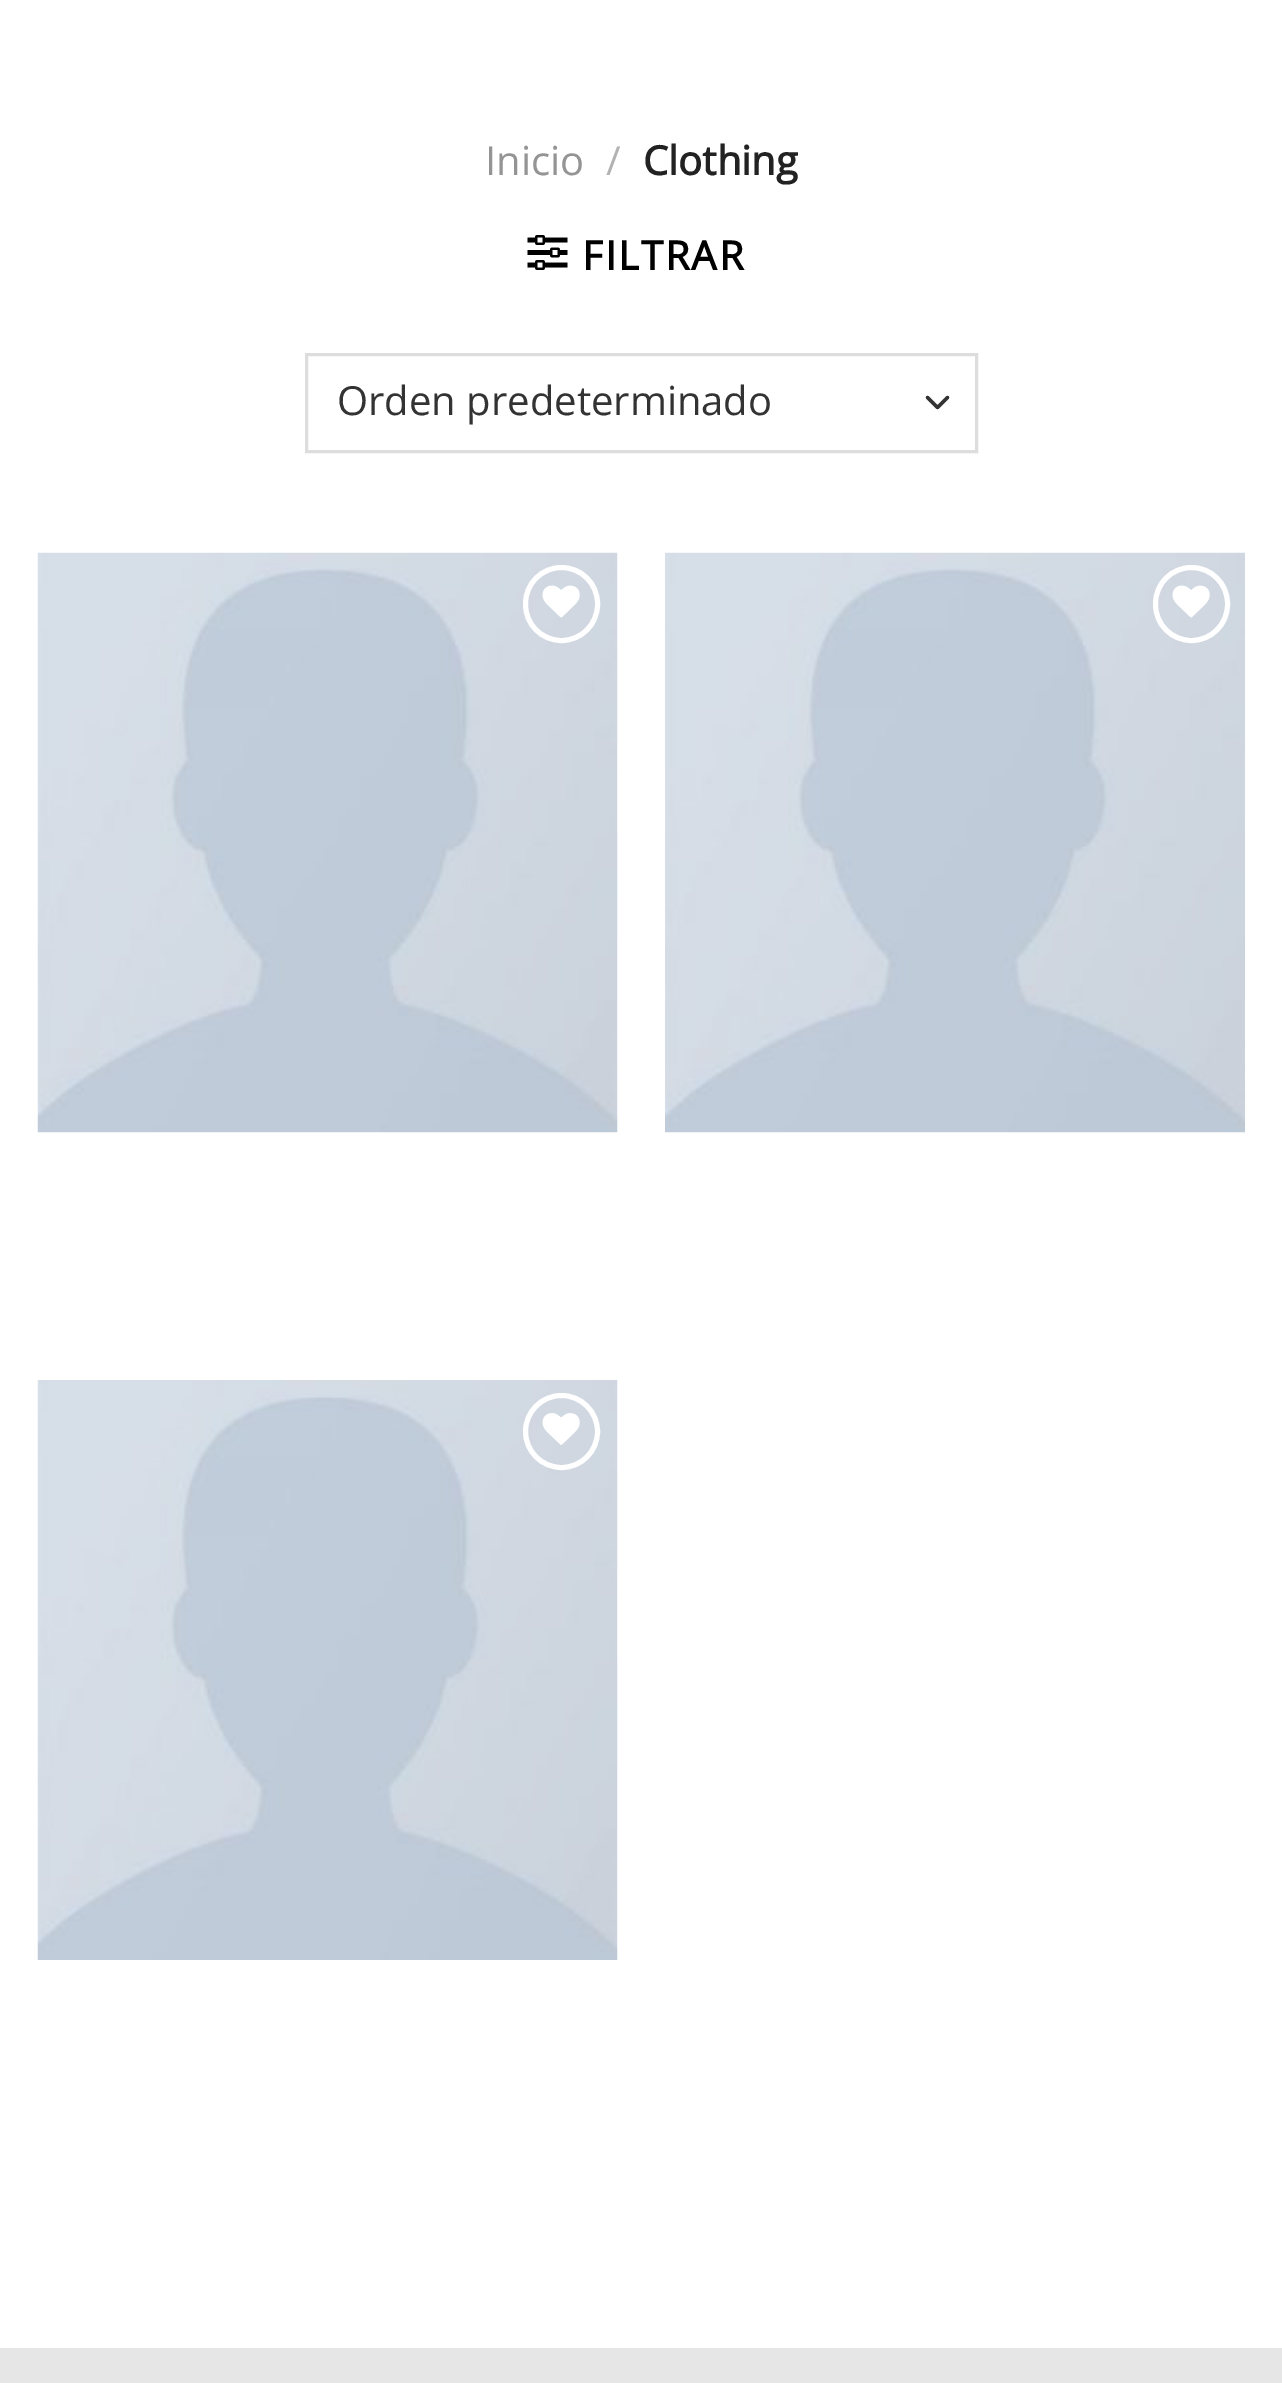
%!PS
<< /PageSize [1282 2383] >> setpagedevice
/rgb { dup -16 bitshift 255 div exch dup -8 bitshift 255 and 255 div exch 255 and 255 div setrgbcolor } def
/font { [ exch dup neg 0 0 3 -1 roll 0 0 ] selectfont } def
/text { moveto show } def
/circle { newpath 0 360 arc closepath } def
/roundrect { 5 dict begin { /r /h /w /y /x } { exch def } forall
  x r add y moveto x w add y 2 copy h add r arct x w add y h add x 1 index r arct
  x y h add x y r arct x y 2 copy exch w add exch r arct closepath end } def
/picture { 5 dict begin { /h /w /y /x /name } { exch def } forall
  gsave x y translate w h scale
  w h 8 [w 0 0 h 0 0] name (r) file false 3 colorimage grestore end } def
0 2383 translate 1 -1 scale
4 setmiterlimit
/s1 { /OpenSans-Regular 40 font 16#949494 rgb } def
/s2 { /OpenSans-Regular 40 font 16#B2B2B2 rgb } def
/s3 { /OpenSans-Bold 40 font 16#222222 rgb } def
/s4 { /OpenSans-Regular 40 font 16#333333 rgb } def
16#E6E6E6 rgb
0 0 1282 2383 rectfill
16#FFFFFF rgb
0 0 1282 2348 rectfill
s1
(Inicio) 485 175 text
s2
(/) 606 175 text
s3
(Clothing) 643 175 text
(pic1.raw) 527 235 41 35 picture
16#000000 rgb
582 270 moveto 2 0 (FILTRAR) ashow
16#333333 rgb
3.3 setlinewidth
1 setlinecap
1 setlinejoin
927.5 397.5 moveto 937.5 407.5 lineto 947.5 397.5 lineto stroke
16#DDDDDD rgb
3 setlinewidth
0 setlinecap
0 setlinejoin
306.5 354.5 670 97 rectstroke
s4
(Orden predeterminado) 337 415 text
(pic2.raw) 37 552 581 581 picture
16#FFFFFF rgb
5 setlinewidth
525.5 567.5 72 73 36 roundrect stroke
(pic3.raw) 542 585 38 33 picture
(pic4.raw) 665 552 580 581 picture
1155.5 567.5 72 73 36 roundrect stroke
(pic5.raw) 1172 585 38 33 picture
(pic6.raw) 37 1380 581 580 picture
561.5 1431.5 36 circle stroke
(pic7.raw) 542 1413 38 32 picture
showpage
